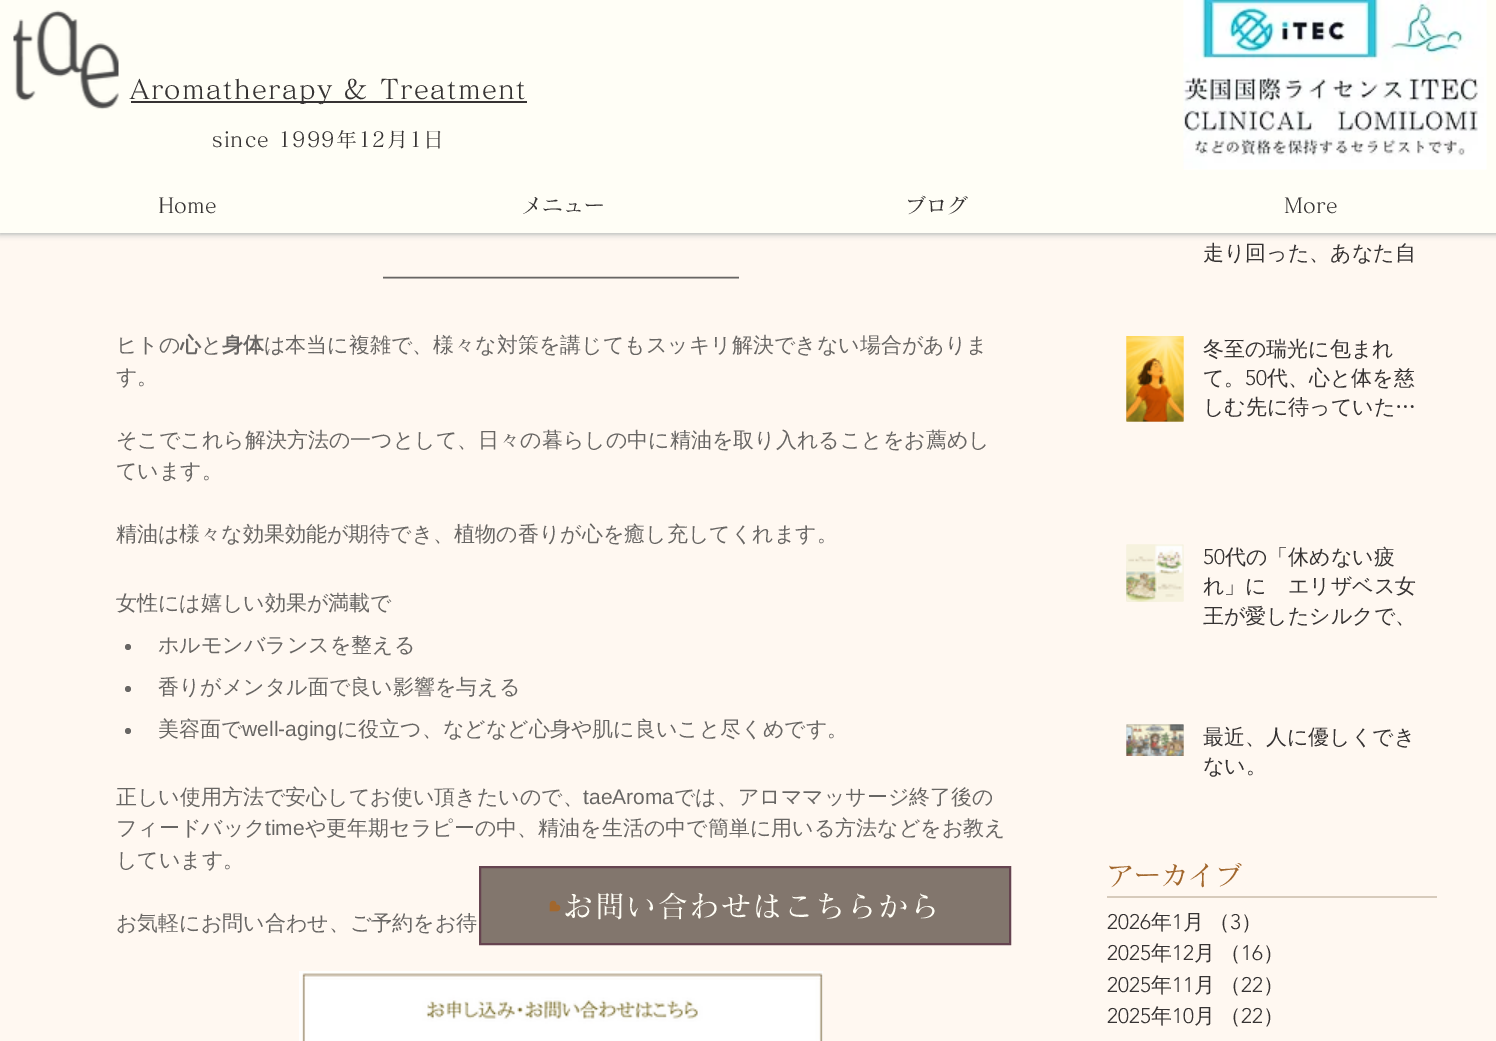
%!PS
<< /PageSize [1496 1041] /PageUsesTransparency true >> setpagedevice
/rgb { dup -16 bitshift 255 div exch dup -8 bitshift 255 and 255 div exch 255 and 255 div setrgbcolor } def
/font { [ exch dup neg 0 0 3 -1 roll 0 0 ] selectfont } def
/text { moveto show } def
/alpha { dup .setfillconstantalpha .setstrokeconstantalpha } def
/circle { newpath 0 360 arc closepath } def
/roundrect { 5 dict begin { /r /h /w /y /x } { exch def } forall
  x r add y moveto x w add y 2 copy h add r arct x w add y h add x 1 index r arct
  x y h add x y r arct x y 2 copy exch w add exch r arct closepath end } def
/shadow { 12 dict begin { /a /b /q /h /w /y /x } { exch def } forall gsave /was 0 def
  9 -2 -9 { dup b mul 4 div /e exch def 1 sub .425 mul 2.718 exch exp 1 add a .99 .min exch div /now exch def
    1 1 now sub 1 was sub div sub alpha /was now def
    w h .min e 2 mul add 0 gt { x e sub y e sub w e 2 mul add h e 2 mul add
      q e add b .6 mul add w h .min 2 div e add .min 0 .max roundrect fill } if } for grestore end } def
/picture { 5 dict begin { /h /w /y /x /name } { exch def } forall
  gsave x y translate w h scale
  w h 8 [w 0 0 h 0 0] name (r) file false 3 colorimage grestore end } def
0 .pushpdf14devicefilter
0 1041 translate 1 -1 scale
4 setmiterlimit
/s1 { /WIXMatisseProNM-Medium 21 font 16#363333 rgb } def
/s2 { /WenQuanYiZenHei-Medium 21 font 16#686664 rgb } def
/s3 { /WenQuanYiZenHei-Bold 21 font 16#686664 rgb } def
/s4 { /LiberationSans-Regular 21 font 16#686664 rgb } def
/s5 { /WIXMatisseProNM-Medium 27 font 16#A2672D rgb } def
/s6 { /WenQuanYiZenHei-Medium 21 font 16#363333 rgb } def
/s7 { /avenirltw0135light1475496-Light 21 font 16#363333 rgb } def
16#FFF8F1 rgb
0 0 1496 1041 rectfill
16#677880 rgb
0 2 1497 232 0 3 0.6 shadow
16#FFFEF6 rgb
0 0 1496 233 rectfill
(pic1.raw) 13 10 106 100 picture
16#363333 rgb
131 101 396 2 rectfill
/WIXMatisseProNM-Medium 27 font
130 99 moveto 1.35 0 (Aromatherapy & Treatment) ashow
/WIXMatisseProNM-Medium 21 font
212 147 moveto 1 0 (since 1999年12月1日) ashow
(pic2.raw) 1183 0 304 170 picture
(Home) 158 213 text
(メニュー) 521 213 text
(ブログ) 905 213 text
(More) 1284 213 text
gsave
383 276 357 23 rectclip
16#686664 rgb
1.5 setlinewidth
382.5 277.5 moveto 739 277.5 lineto stroke
grestore
s2
(ヒトの) 116 352 text
s3
(心) 180 352 text
s2
(と) 201 352 text
s3
(身体) 222 352 text
s2
(は本当に複雑で、様々な対策を講じてもスッキリ解決できない場合がありま) 264 352 text
(す。) 116 384 text
(そこでこれら解決方法の一つとして、日々の暮らしの中に精油を取り入れることをお薦めし) 116 447 text
(ています。) 116 478 text
(精油は様々な効果効能が期待でき、植物の香りが心を癒し充してくれます。) 116 541 text
(女性には嬉しい効果が満載で) 116 610 text
128 647 3 circle fill
(ホルモンバランスを整える) 158 652 text
128 689 3 circle fill
(香りがメンタル面で良い影響を与える) 158 694 text
128 731 3 circle fill
(美容面で) 158 736 text
s4
(well-aging) 242 736 text
s2
(に役立つ、などなど心身や肌に良いこと尽くめです。) 337 736 text
(正しい使用方法で安心してお使い頂きたいので、) 116 804 text
s4
(taeAroma) 583 804 text
s2
(では、アロママッサージ終了後の) 674 804 text
(フィードバック) 116 835 text
s4
(time) 265 835 text
s2
(や更年期セラピーの中、精油を生活の中で簡単に用いる方法などをお教え) 305 835 text
(しています。) 116 867 text
(お気軽にお問い合わせ、ご予約をお待) 116 930 text
(pic3.raw) 299 971 524 70 picture
s5
(アーカイブ) 1107 885 text
s6
(走り回った、あなた自) 1203 260 text
(pic4.raw) 1126 336 58 86 picture
(pic5.raw) 1126 336 58 86 picture
(冬至の瑞光に包まれ) 1203 356 text
(て。) 1203 385 text
s7
(50) 1245 385 text
s6
(代、心と体を慈) 1267 385 text
(しむ先に待っていた…) 1203 414 text
(pic6.raw) 1126 544 58 58 picture
(pic7.raw) 1126 544 58 58 picture
s7
(50) 1203 564 text
s6
(代の「休めない疲) 1225 564 text
(れ」に　エリザベス女) 1203 593 text
(王が愛したシルクで、) 1203 623 text
(pic8.raw) 1126 724 58 32 picture
(pic9.raw) 1126 724 58 32 picture
(最近、人に優しくでき) 1203 744 text
(ない。) 1203 773 text
16#D7CBBC rgb
1107 896 330 2 rectfill
s7
(2026) 1107 929 text
s6
(年) 1151 929 text
s7
(1) 1172 929 text
s6
(月) 1183 929 text
(（) 1209 929 text
s7
(3) 1230 929 text
s6
(）) 1241 929 text
s7
(2025) 1107 960 text
s6
(年) 1151 960 text
s7
(12) 1172 960 text
s6
(月) 1194 960 text
(（) 1220 960 text
s7
(16) 1241 960 text
s6
(）) 1263 960 text
s7
(2025) 1107 992 text
s6
(年) 1151 992 text
s7
(11) 1172 992 text
s6
(月) 1194 992 text
(（) 1220 992 text
s7
(22) 1241 992 text
s6
(）) 1263 992 text
s7
(2025) 1107 1023 text
s6
(年) 1151 1023 text
s7
(10) 1172 1023 text
s6
(月) 1194 1023 text
(（) 1220 1023 text
s7
(22) 1241 1023 text
s6
(）) 1263 1023 text
0.76 alpha
16#5B4D43 rgb
480 867 moveto 1010 867 lineto 1010 944 lineto 480 944 lineto closepath fill
1 alpha
16#664450 rgb
2 setlinewidth
480 867 moveto 1010 867 lineto 1010 944 lineto 480 944 lineto closepath stroke
(pic10.raw) 549 900 12 12 picture
/WIXMatisseProNM-Medium 30 font
16#FFFEF6 rgb
563 917 moveto 1.5 0 (お問い合わせはこちらから) ashow
.poppdf14devicefilter showpage
